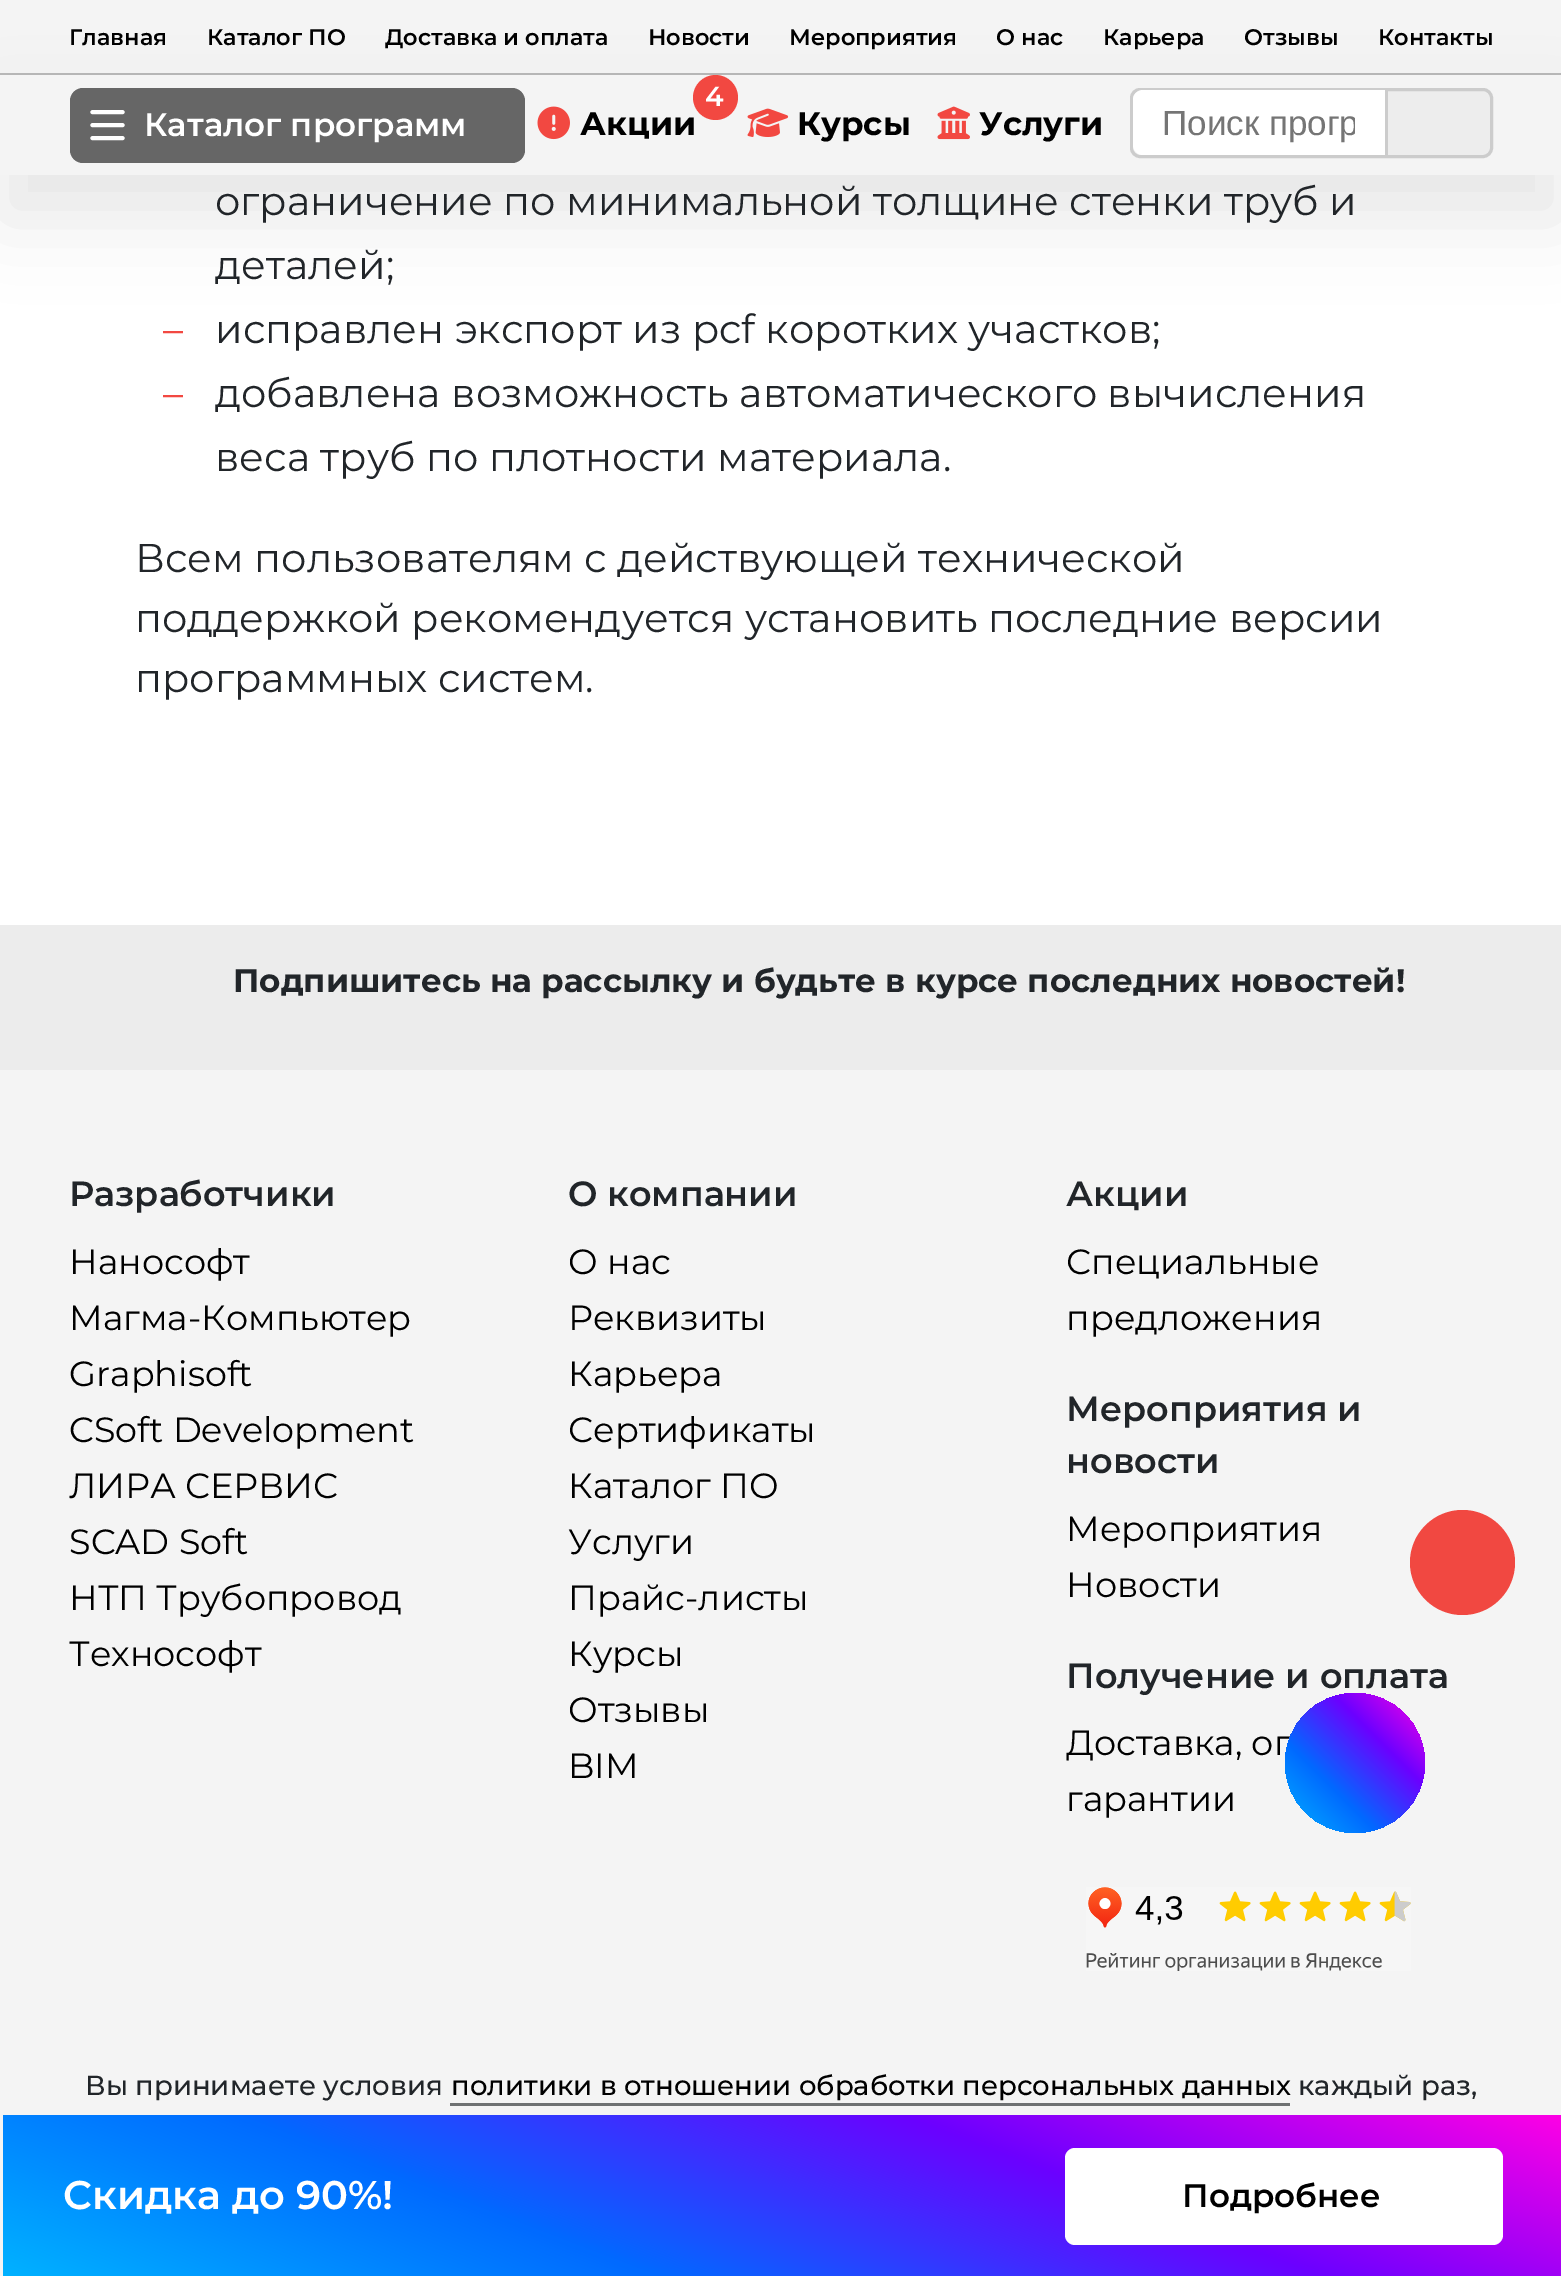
%!PS
<< /PageSize [1561 2276] /PageUsesTransparency true >> setpagedevice
/rgb { dup -16 bitshift 255 div exch dup -8 bitshift 255 and 255 div exch 255 and 255 div setrgbcolor } def
/font { [ exch dup neg 0 0 3 -1 roll 0 0 ] selectfont } def
/text { moveto show } def
/alpha { dup .setfillconstantalpha .setstrokeconstantalpha } def
/circle { newpath 0 360 arc closepath } def
/roundrect { 5 dict begin { /r /h /w /y /x } { exch def } forall
  x r add y moveto x w add y 2 copy h add r arct x w add y h add x 1 index r arct
  x y h add x y r arct x y 2 copy exch w add exch r arct closepath end } def
/shadow { 12 dict begin { /a /b /q /h /w /y /x } { exch def } forall gsave /was 0 def
  9 -2 -9 { dup b mul 4 div /e exch def 1 sub .425 mul 2.718 exch exp 1 add a .99 .min exch div /now exch def
    1 1 now sub 1 was sub div sub alpha /was now def
    w h .min e 2 mul add 0 gt { x e sub y e sub w e 2 mul add h e 2 mul add
      q e add b .6 mul add w h .min 2 div e add .min 0 .max roundrect fill } if } for grestore end } def
/picture { 5 dict begin { /h /w /y /x /name } { exch def } forall
  gsave x y translate w h scale
  w h 8 [w 0 0 h 0 0] name (r) file false 3 colorimage grestore end } def
0 .pushpdf14devicefilter
0 2276 translate 1 -1 scale
4 setmiterlimit
/s1 { /Montserrat-SemiBold 22.5 font 16#000000 rgb } def
/s2 { /Montserrat-SemiBold 32.5 font 16#FFFFFF rgb } def
/s3 { /Montserrat-Bold 32.5 font 16#000000 rgb } def
/s4 { /Montserrat-SemiBold 27.5 font 16#FFFFFF rgb } def
/s5 { /LiberationSans-Regular 35 font 16#757575 rgb } def
/s6 { /Montserrat-Regular 40 font 16#212529 rgb } def
/s7 { /Montserrat-Regular 40 font 16#F24841 rgb } def
/s8 { /Montserrat-Bold 32.5 font 16#212529 rgb } def
/s9 { /Montserrat-SemiBold 35 font 16#212529 rgb } def
/s10 { /Montserrat-Regular 35 font 16#000000 rgb } def
/s11 { /Montserrat-Medium 27.5 font 16#212529 rgb } def
/s12 { /Montserrat-Medium 27.5 font 16#000000 rgb } def
/s13 { /Montserrat-SemiBold 40 font 16#FFFFFF rgb } def
/s14 { /Montserrat-SemiBold 32.5 font 16#000000 rgb } def
16#FFFFFF rgb
0 0 1561 2276 rectfill
16#F4F4F4 rgb
0 0 1561 73 rectfill
16#B9B9B9 rgb
0 73 1561 2 rectfill
s1
(Главная) 69 45 text
(Каталог ПО) 207 45 text
(Доставка и оплата) 385 45 text
(Новости) 648 45 text
(Мероприятия) 789 45 text
(О нас) 996 45 text
(Карьера) 1103 45 text
(Отзывы) 1244 45 text
(Контакты) 1378 45 text
0 120 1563 100 0 37.5 0.09 shadow
16#F4F4F4 rgb
0 75 1561 100 rectfill
16#666666 rgb
70 88 455 75 13 roundrect fill
16#FFFFFF rgb
4.1 setlinewidth
1 setlinecap
122.5 112 moveto 92.5 112 lineto 122.5 125 moveto 92.5 125 lineto 92.5 138 moveto 122.5 138 lineto stroke
s2
(Каталог программ) 144 136 text
s3
(Акции) 580 135 text
16#F24841 rgb
715.5 97.5 22.5 circle fill
s4
(4) 705 106 text
(pic1.raw) 537 106 33 34 picture
(pic2.raw) 747 108 42 29 picture
s3
(Курсы) 797 135 text
(pic3.raw) 937 106 33 34 picture
(Услуги) 979 135 text
16#EDEDED rgb
1131.5 89.5 360 67 8.5 roundrect gsave fill grestore
16#CCCCCC rgb
3 setlinewidth
0 setlinecap
stroke
16#FFFFFF rgb
1143 90 moveto 1388 90 lineto 1388 155 lineto 1143 155 lineto 1137.5 155 1133 150.5 1133 145 curveto 1133 100 lineto 1133 94.5 1137.5 90 1143 90 curveto closepath fill
16#CCCCCC rgb
1385 90 3 65 rectfill
gsave
1163 103 192 40 rectclip
s5
(Поиск прогр) 1162 135 text
grestore
s6
(ограничение по минимальной толщине стенки труб и) 215 215 text
(деталей;) 215 279 text
s7
(–) 163 343 text
s6
(исправлен экспорт из pcf коротких участков;) 215 343 text
s7
(–) 163 407 text
s6
(добавлена возможность автоматического вычисления) 215 407 text
(веса труб по плотности материала.) 215 471 text
(Всем пользователям с действующей технической) 135 572 text
(поддержкой рекомендуется установить последние версии) 135 632 text
(программных систем.) 135 692 text
16#ECECEC rgb
0 925 1561 145 rectfill
s8
(Подпишитесь на рассылку и будьте в курсе последних новостей!) 233 992 text
16#F4F4F4 rgb
0 1070 1561 1206 rectfill
s9
(Разработчики) 69 1206 text
s10
(Нанософт) 69 1274 text
(Магма-Компьютер) 69 1330 text
(Graphisoft) 69 1386 text
(CSoft Development) 69 1442 text
(ЛИРА СЕРВИС) 69 1498 text
(SCAD Soft) 69 1554 text
(НТП Трубопровод) 69 1610 text
(Технософт) 69 1666 text
s9
(О компании) 568 1206 text
s10
(О нас) 568 1274 text
(Реквизиты) 568 1330 text
(Карьера) 568 1386 text
(Сертификаты) 568 1442 text
(Каталог ПО) 568 1498 text
(Услуги) 568 1554 text
(Прайс-листы) 568 1610 text
(Курсы) 568 1666 text
(Отзывы) 568 1722 text
(BIM) 568 1778 text
s9
(Акции) 1066 1206 text
s10
(Специальные) 1066 1274 text
(предложения) 1066 1330 text
s9
(Мероприятия и) 1066 1421 text
(новости) 1066 1473 text
s10
(Мероприятия) 1066 1541 text
(Новости) 1066 1597 text
s9
(Получение и оплата) 1066 1688 text
s10
(Доставка, оп) 1066 1755 text
(гарантии) 1066 1811 text
(pic4.raw) 1086 1887 325 84 picture
s11
(Вы принимаете условия) 85 2095 text
s12
(политики в отношении обработки персональных данных) 451 2095 text
16#6E7172 rgb
450 2103 840 3 rectfill
s11
(каждый раз,) 1298 2095 text
16#F14841 rgb
1462.5 1562.5 52.5 circle fill
gsave 1355 1763 70 circle clip newpath
<< /ShadingType 2 /ColorSpace /DeviceRGB /Coords [1285 1833 1425 1693] /Extend [true true] /Function << /FunctionType 3 /Domain [0 1] /Functions [<< /FunctionType 2 /Domain [0 1] /C0 [0 0.698 1] /C1 [0 0.416 1] /N 1 >> << /FunctionType 2 /Domain [0 1] /C0 [0 0.416 1] /C1 [0.424 0 1] /N 1 >> << /FunctionType 2 /Domain [0 1] /C0 [0.424 0 1] /C1 [1 0 0.898] /N 1 >>] /Bounds [0.33 0.67] /Encode [0 1 0 1 0 1] >> >> shfill grestore
gsave 3 2115 moveto 1561 2115 lineto 1561 2276 lineto 3 2276 lineto closepath clip newpath
<< /ShadingType 2 /ColorSpace /DeviceRGB /Coords [655 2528 910 1864] /Extend [true true] /Function << /FunctionType 3 /Domain [0 1] /Functions [<< /FunctionType 2 /Domain [0 1] /C0 [0 0.698 1] /C1 [0 0.416 1] /N 1 >> << /FunctionType 2 /Domain [0 1] /C0 [0 0.416 1] /C1 [0.424 0 1] /N 1 >> << /FunctionType 2 /Domain [0 1] /C0 [0.424 0 1] /C1 [1 0 0.898] /N 1 >>] /Bounds [0.33 0.67] /Encode [0 1 0 1 0 1] >> >> shfill grestore
s13
(Скидка до 90%!) 63 2209 text
1065 2148 438 97 10 roundrect fill
s14
(Подробнее) 1182 2207 text
.poppdf14devicefilter showpage
